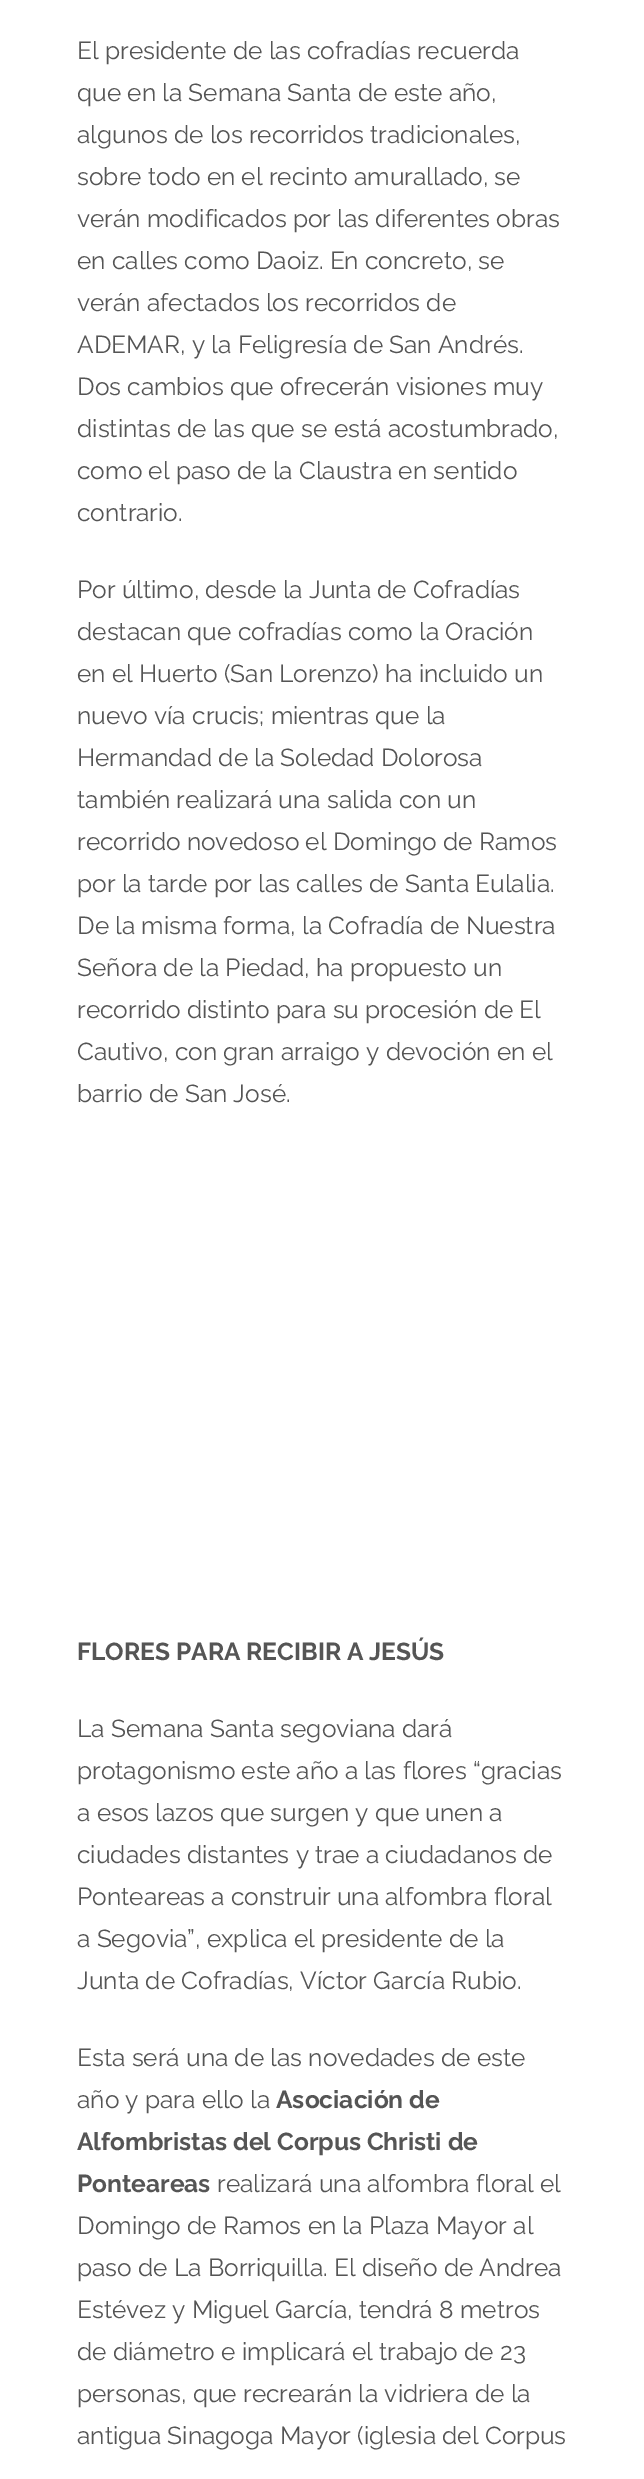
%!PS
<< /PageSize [644 2479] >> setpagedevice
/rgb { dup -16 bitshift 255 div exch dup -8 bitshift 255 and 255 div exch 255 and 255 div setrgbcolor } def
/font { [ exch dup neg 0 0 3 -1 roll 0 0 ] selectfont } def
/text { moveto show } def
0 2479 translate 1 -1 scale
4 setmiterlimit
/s1 { /Raleway-Regular 24.5 font 16#555555 rgb } def
/s2 { /Raleway-Bold 24.5 font 16#555555 rgb } def
16#FFFFFF rgb
0 0 644 2479 rectfill
s1
(El presidente de las cofradías recuerda) 77 59 text
(que en la Semana Santa de este año,) 77 101 text
(algunos de los recorridos tradicionales,) 77 143 text
(sobre todo en el recinto amurallado, se) 77 185 text
(verán modificados por las diferentes obras) 77 227 text
(en calles como Daoiz. En concreto, se) 77 269 text
(verán afectados los recorridos de) 77 311 text
(ADEMAR, y la Feligresía de San Andrés.) 77 353 text
(Dos cambios que ofrecerán visiones muy) 77 395 text
(distintas de las que se está acostumbrado,) 77 437 text
(como el paso de la Claustra en sentido) 77 479 text
(contrario.) 77 521 text
(Por último, desde la Junta de Cofradías) 77 598 text
(destacan que cofradías como la Oración) 77 640 text
(en el Huerto \(San Lorenzo\) ha incluido un) 77 682 text
(nuevo vía crucis; mientras que la) 77 724 text
(Hermandad de la Soledad Dolorosa) 77 766 text
(también realizará una salida con un) 77 808 text
(recorrido novedoso el Domingo de Ramos) 77 850 text
(por la tarde por las calles de Santa Eulalia.) 77 892 text
(De la misma forma, la Cofradía de Nuestra) 77 934 text
(Señora de la Piedad, ha propuesto un) 77 976 text
(recorrido distinto para su procesión de El) 77 1018 text
(Cautivo, con gran arraigo y devoción en el) 77 1060 text
(barrio de San José.) 77 1102 text
s2
(FLORES PARA RECIBIR A JESÚS) 77 1660 text
s1
(La Semana Santa segoviana dará) 77 1737 text
(protagonismo este año a las flores “gracias) 77 1779 text
(a esos lazos que surgen y que unen a) 77 1821 text
(ciudades distantes y trae a ciudadanos de) 77 1863 text
(Ponteareas a construir una alfombra floral) 77 1905 text
(a Segovia”, explica el presidente de la) 77 1947 text
(Junta de Cofradías, Víctor García Rubio.) 77 1989 text
(Esta será una de las novedades de este) 77 2066 text
(año y para ello la) 77 2108 text
s2
(Asociación de) 276 2108 text
(Alfombristas del Corpus Christi de) 77 2150 text
(Ponteareas) 77 2192 text
s1
(realizará una alfombra floral el) 217 2192 text
(Domingo de Ramos en la Plaza Mayor al) 77 2234 text
(paso de La Borriquilla. El diseño de Andrea) 77 2276 text
(Estévez y Miguel García, tendrá 8 metros) 77 2318 text
(de diámetro e implicará el trabajo de 23) 77 2360 text
(personas, que recrearán la vidriera de la) 77 2402 text
(antigua Sinagoga Mayor \(iglesia del Corpus) 77 2444 text
showpage
